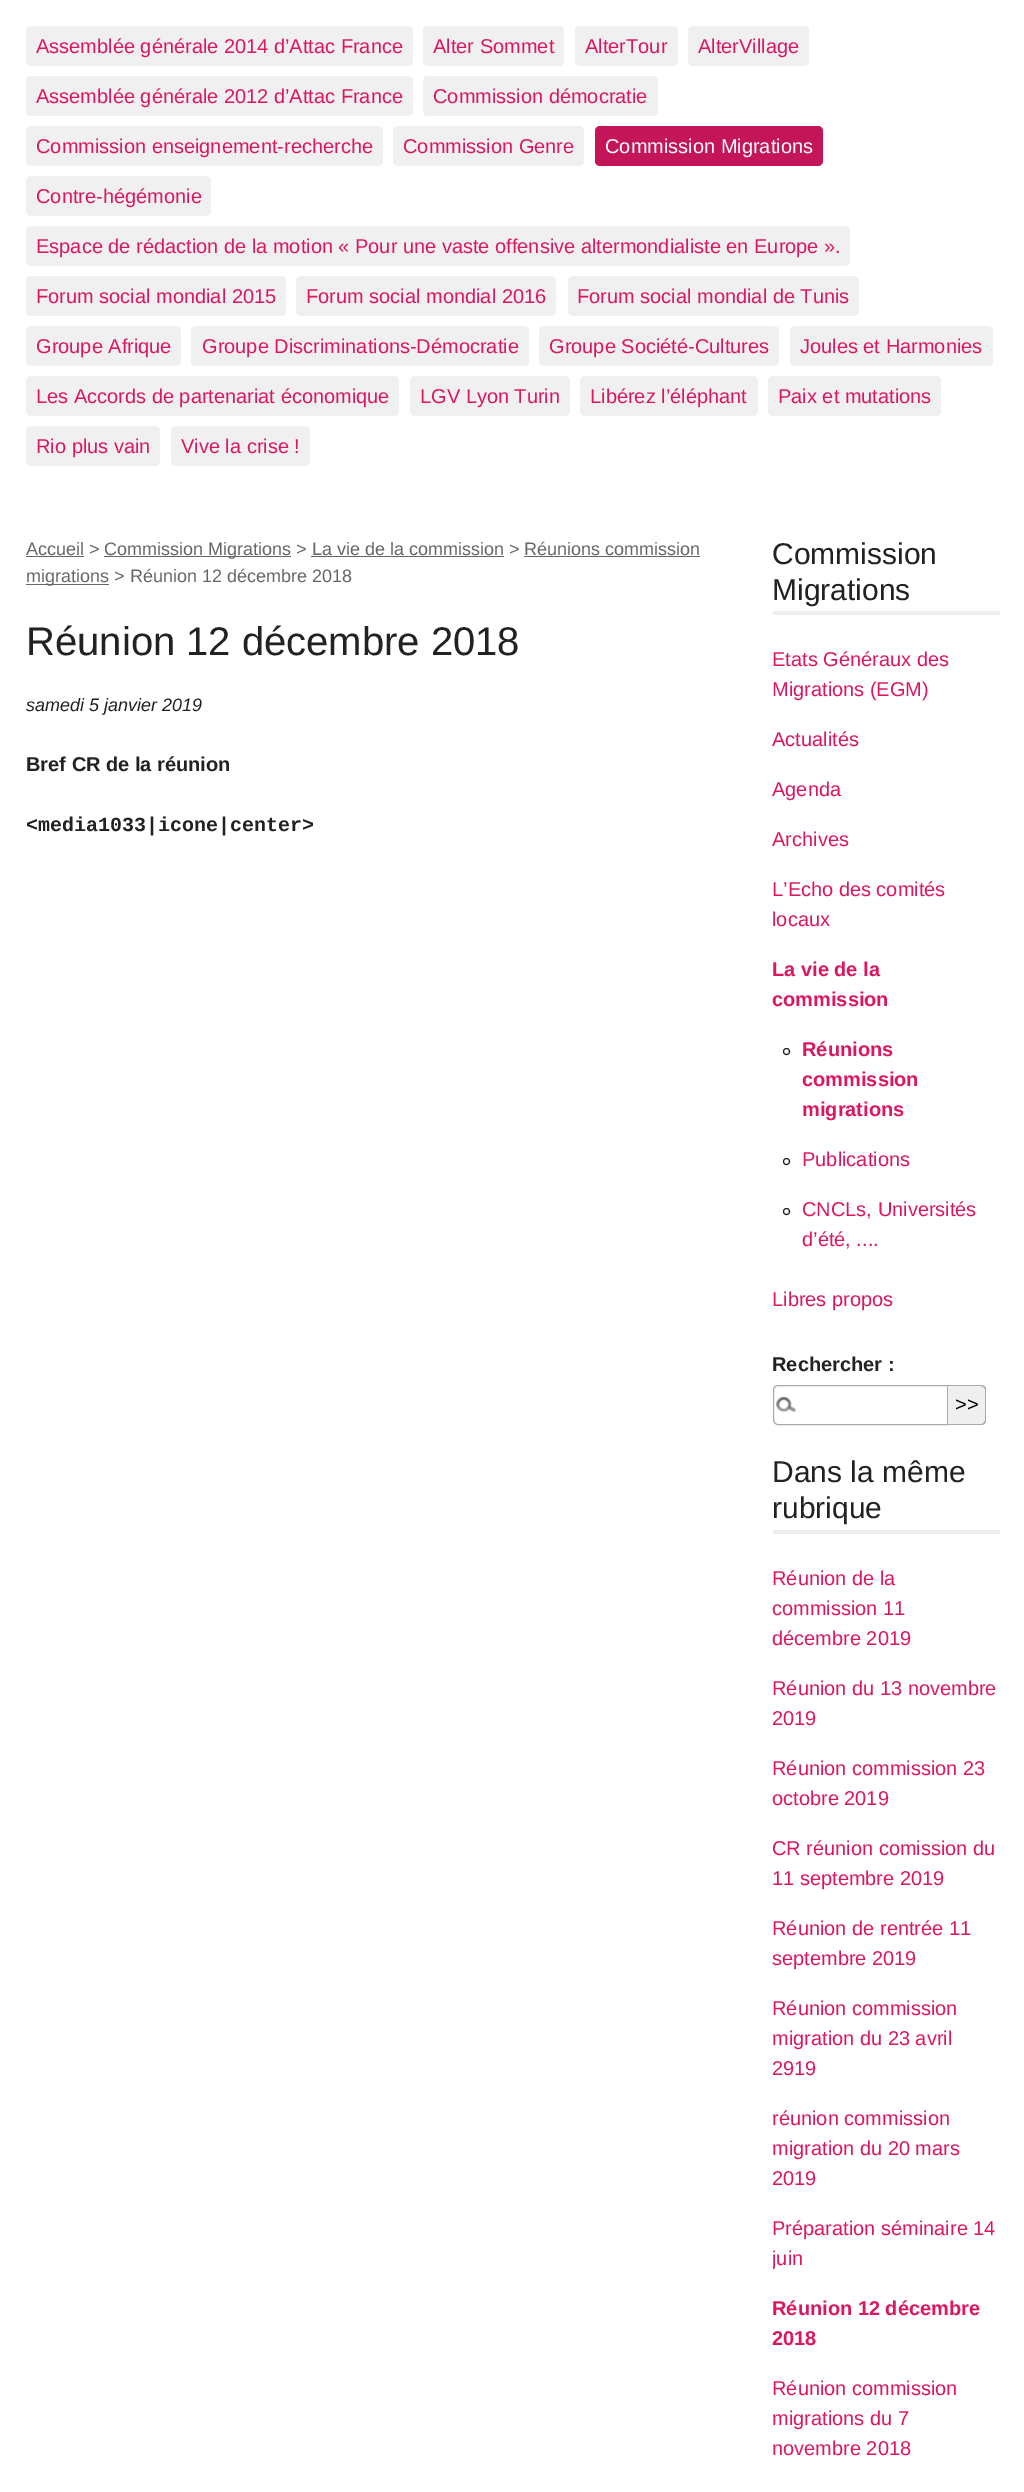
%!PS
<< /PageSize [1024 2492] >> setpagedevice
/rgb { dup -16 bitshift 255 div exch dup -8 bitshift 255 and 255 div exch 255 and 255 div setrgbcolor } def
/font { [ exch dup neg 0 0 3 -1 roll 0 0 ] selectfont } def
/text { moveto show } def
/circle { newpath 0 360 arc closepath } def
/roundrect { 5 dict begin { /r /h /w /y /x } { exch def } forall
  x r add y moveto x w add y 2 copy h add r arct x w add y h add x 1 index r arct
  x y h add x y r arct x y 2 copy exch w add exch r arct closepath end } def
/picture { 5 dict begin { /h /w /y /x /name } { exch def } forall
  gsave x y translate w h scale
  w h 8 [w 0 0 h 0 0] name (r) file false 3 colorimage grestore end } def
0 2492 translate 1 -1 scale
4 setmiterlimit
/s1 { /LiberationSans-Regular 20 font 16#DB1762 rgb } def
/s2 { /LiberationSans-Regular 20 font 16#FFFFFF rgb } def
/s3 { /LiberationSans-Regular 18 font 16#666666 rgb } def
/s4 { /LiberationSans-Regular 40 font 16#222222 rgb } def
/s5 { /LiberationSans-Italic 18 font 16#222222 rgb } def
/s6 { /LiberationSans-Bold 20 font 16#222222 rgb } def
/s7 { /LiberationMono-Bold 20 font 16#222222 rgb } def
/s8 { /LiberationSans-Regular 30 font 16#222222 rgb } def
/s9 { /LiberationSans-Bold 20 font 16#DB1762 rgb } def
/s10 { /LiberationSans-Regular 20 font 16#000000 rgb } def
16#FFFFFF rgb
0 0 1024 2492 rectfill
16#F0F0F0 rgb
26 26 387 40 5 roundrect fill
s1
(Assemblée générale 2014 d’Attac France) 36 53 text
16#F0F0F0 rgb
423 26 141 40 5 roundrect fill
s1
(Alter Sommet) 433 53 text
16#F0F0F0 rgb
575 26 103 40 5 roundrect fill
s1
(AlterTour) 585 53 text
16#F0F0F0 rgb
688 26 121 40 5 roundrect fill
s1
(AlterVillage) 698 53 text
16#F0F0F0 rgb
26 76 387 40 5 roundrect fill
s1
(Assemblée générale 2012 d’Attac France) 36 103 text
16#F0F0F0 rgb
423 76 235 40 5 roundrect fill
s1
(Commission démocratie) 433 103 text
16#F0F0F0 rgb
26 126 357 40 5 roundrect fill
s1
(Commission enseignement-recherche) 36 153 text
16#F0F0F0 rgb
393 126 191 40 5 roundrect fill
s1
(Commission Genre) 403 153 text
16#C41558 rgb
595 126 228 40 5 roundrect fill
s2
(Commission Migrations) 605 153 text
16#F0F0F0 rgb
26 176 185 40 5 roundrect fill
s1
(Contre-hégémonie) 36 203 text
16#F0F0F0 rgb
26 226 824 40 5 roundrect fill
s1
(Espace de rédaction de la motion « Pour une vaste offensive altermondialiste en Europe ».) 36 253 text
16#F0F0F0 rgb
26 276 260 40 5 roundrect fill
s1
(Forum social mondial 2015) 36 303 text
16#F0F0F0 rgb
296 276 260 40 5 roundrect fill
s1
(Forum social mondial 2016) 306 303 text
16#F0F0F0 rgb
568 276 291 40 5 roundrect fill
s1
(Forum social mondial de Tunis) 577 303 text
16#F0F0F0 rgb
26 326 155 40 5 roundrect fill
s1
(Groupe Afrique) 36 353 text
16#F0F0F0 rgb
191 326 338 40 5 roundrect fill
s1
(Groupe Discriminations-Démocratie) 202 353 text
16#F0F0F0 rgb
539 326 240 40 5 roundrect fill
s1
(Groupe Société-Cultures) 549 353 text
16#F0F0F0 rgb
790 326 203 40 5 roundrect fill
s1
(Joules et Harmonies) 800 353 text
16#F0F0F0 rgb
26 376 373 40 5 roundrect fill
s1
(Les Accords de partenariat économique) 36 403 text
16#F0F0F0 rgb
410 376 160 40 5 roundrect fill
s1
(LGV Lyon Turin) 420 403 text
16#F0F0F0 rgb
580 376 178 40 5 roundrect fill
s1
(Libérez l’éléphant) 590 403 text
16#F0F0F0 rgb
768 376 173 40 5 roundrect fill
s1
(Paix et mutations) 778 403 text
16#F0F0F0 rgb
26 426 134 40 5 roundrect fill
s1
(Rio plus vain) 36 453 text
16#F0F0F0 rgb
171 426 139 40 5 roundrect fill
s1
(Vive la crise !) 181 453 text
s3
(Accueil >) 26 555 text
26 556 58 1 rectfill
104 556 187 1 rectfill
(Commission Migrations > La vie de la commission > Réunions commission) 104 555 text
311 556 193 1 rectfill
26 584 83 1 rectfill
(migrations > Réunion 12 décembre 2018) 26 582 text
524 556 176 1 rectfill
s4
(Réunion 12 décembre 2018) 26 655 text
s5
(samedi 5 janvier 2019) 26 711 text
s6
(Bref CR de la réunion) 26 771 text
s7
(<media1033|icone|center>) 26 831 text
16#EEEEEE rgb
773 611 227 4 rectfill
s8
(Commission) 772 564 text
(Migrations) 772 600 text
s1
(Etats Généraux des) 772 666 text
(Migrations \(EGM\)) 772 696 text
(Actualités) 772 746 text
(Agenda) 772 796 text
(Archives) 772 846 text
(L’Echo des comités) 772 896 text
(locaux) 772 926 text
s9
(La vie de la) 772 976 text
(commission) 772 1006 text
16#222222 rgb
786.5 1051.5 3 circle stroke
s9
(Réunions) 802 1056 text
(commission) 802 1086 text
(migrations) 802 1116 text
16#222222 rgb
786.5 1161.5 3 circle stroke
s1
(Publications) 802 1166 text
16#222222 rgb
786.5 1211.5 3 circle stroke
s1
(CNCLs, Universités) 802 1216 text
(d’été, ....) 802 1246 text
(Libres propos) 772 1306 text
s6
(Rechercher :) 772 1371 text
(pic1.raw) 776 1397 21 16 picture
16#AAAAAA rgb
778 1385.5 moveto 947.5 1385.5 lineto 947.5 1424.5 lineto 778 1424.5 lineto 775.5 1424.5 773.5 1422.5 773.5 1420 curveto 773.5 1390 lineto 773.5 1387.5 775.5 1385.5 778 1385.5 curveto closepath stroke
16#EFEFEF rgb
948 1385 moveto 981 1385 lineto 984 1385 986 1387 986 1390 curveto 986 1420 lineto 986 1423 984 1425 981 1425 curveto 948 1425 lineto closepath fill
16#AAAAAA rgb
948 1385 moveto 981 1385 lineto 984 1385 986 1387 986 1390 curveto 986 1420 lineto 986 1423 984 1425 981 1425 curveto 948 1425 lineto closepath 948 1386 moveto 981 1386 lineto 983 1386 985 1388 985 1390 curveto 985 1420 lineto 985 1422 983 1424 981 1424 curveto 948 1424 lineto closepath eofill
s10
(>>) 955 1411 text
16#EEEEEE rgb
773 1530 227 4 rectfill
s8
(Dans la même) 772 1482 text
(rubrique) 772 1518 text
s1
(Réunion de la) 772 1585 text
(commission 11) 772 1615 text
(décembre 2019) 772 1645 text
(Réunion du 13 novembre) 772 1695 text
(2019) 772 1725 text
(Réunion commission 23) 772 1775 text
(octobre 2019) 772 1805 text
(CR réunion comission du) 772 1855 text
(11 septembre 2019) 772 1885 text
(Réunion de rentrée 11) 772 1935 text
(septembre 2019) 772 1965 text
(Réunion commission) 772 2015 text
(migration du 23 avril) 772 2045 text
(2919) 772 2075 text
(réunion commission) 772 2125 text
(migration du 20 mars) 772 2155 text
(2019) 772 2185 text
(Préparation séminaire 14) 772 2235 text
gsave
773 536 227 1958 rectclip
(juin) 772 2265 text
grestore
s9
(Réunion 12 décembre) 772 2315 text
(2018) 772 2345 text
s1
(Réunion commission) 772 2395 text
(migrations du 7) 772 2425 text
(novembre 2018) 772 2455 text
showpage
